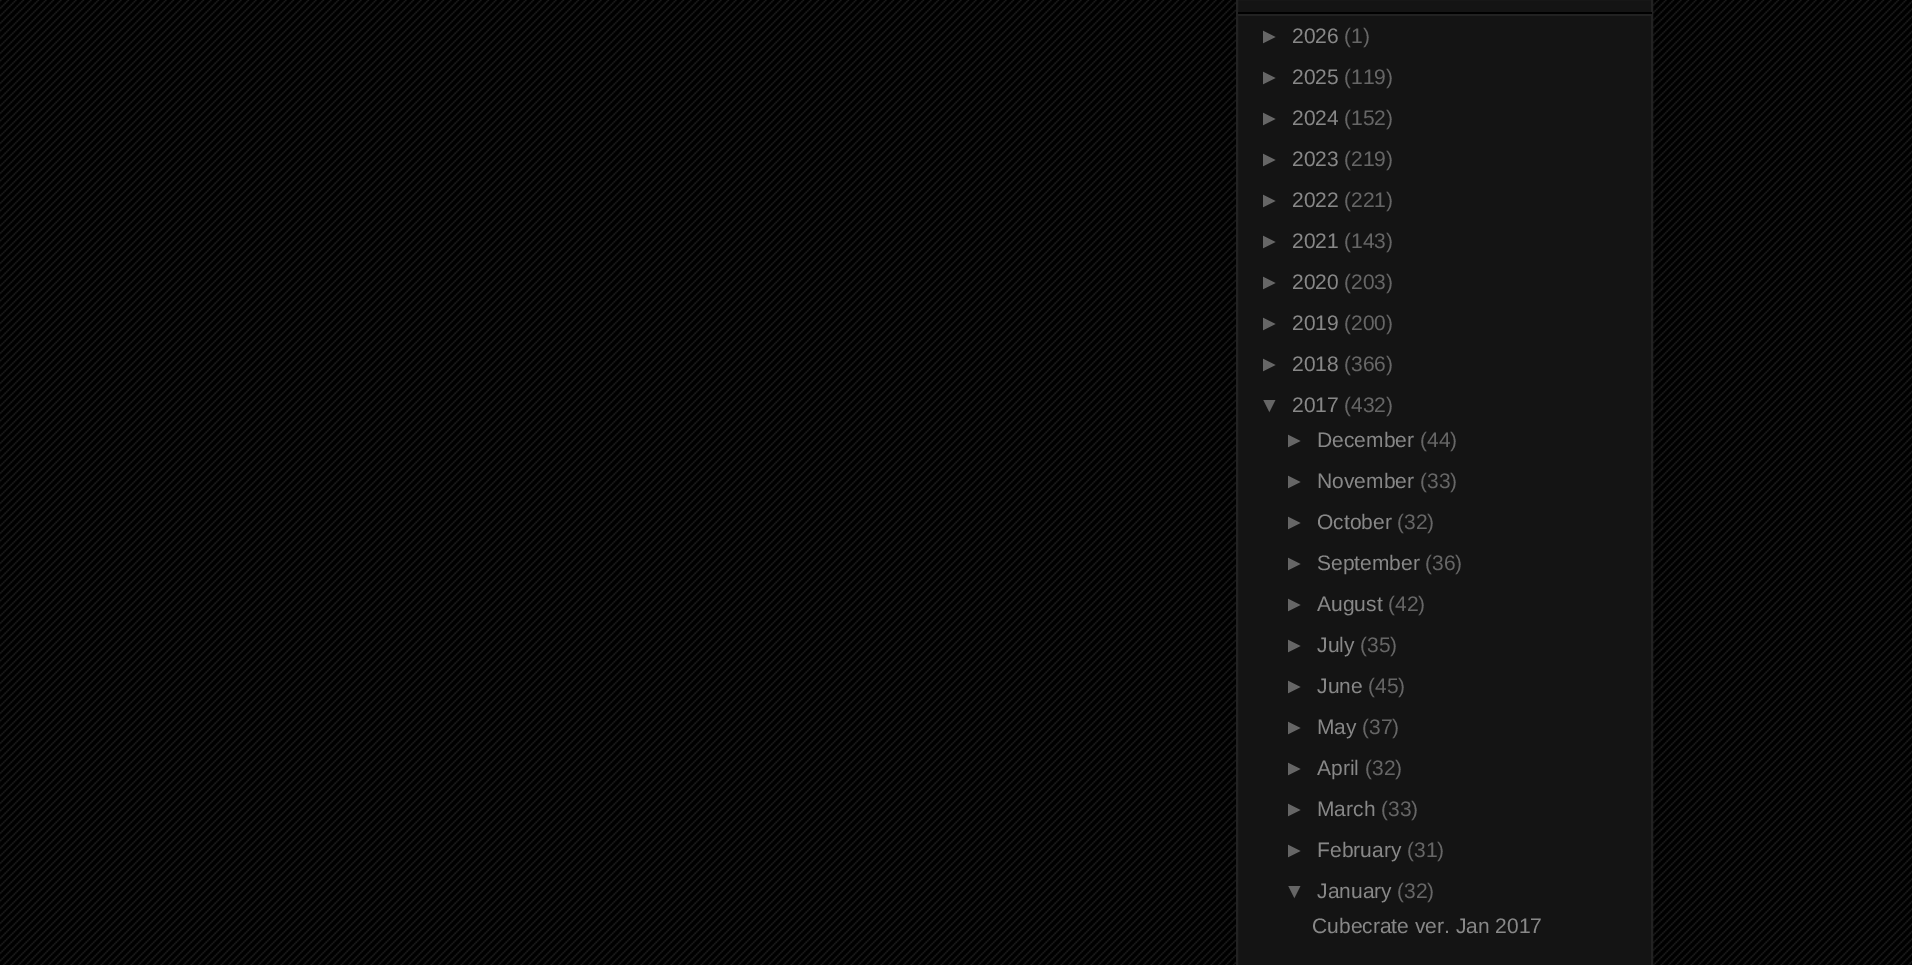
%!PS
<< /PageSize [1912 965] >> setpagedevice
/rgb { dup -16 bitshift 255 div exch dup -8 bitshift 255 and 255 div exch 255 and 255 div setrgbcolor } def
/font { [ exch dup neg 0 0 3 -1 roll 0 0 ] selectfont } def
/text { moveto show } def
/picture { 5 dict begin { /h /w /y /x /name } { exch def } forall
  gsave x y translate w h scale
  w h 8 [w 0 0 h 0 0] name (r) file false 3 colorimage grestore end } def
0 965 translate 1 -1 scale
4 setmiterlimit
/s1 { /LiberationSans-Regular 21 font 16#666666 rgb } def
/s2 { /LiberationSans-Regular 21 font 16#888888 rgb } def
16#000000 rgb
0 0 1912 965 rectfill
(pic1.raw) 0 0 1912 965 picture
16#141414 rgb
1237 -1 moveto 1652 -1 lineto 1652 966 lineto 1237 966 lineto closepath gsave fill grestore
16#222222 rgb
2 setlinewidth
stroke
16#000000 rgb
1238 12 414 2 rectfill
16#222222 rgb
1238 14 414 2 rectfill
s1
(►) 1259 43 text
s2
(2026) 1292 43 text
s1
(\(1\)) 1344 43 text
(►) 1259 84 text
s2
(2025) 1292 84 text
s1
(\(119\)) 1344 84 text
(►) 1259 125 text
s2
(2024) 1292 125 text
s1
(\(152\)) 1344 125 text
(►) 1259 166 text
s2
(2023) 1292 166 text
s1
(\(219\)) 1344 166 text
(►) 1259 207 text
s2
(2022) 1292 207 text
s1
(\(221\)) 1344 207 text
(►) 1259 248 text
s2
(2021) 1292 248 text
s1
(\(143\)) 1344 248 text
(►) 1259 289 text
s2
(2020) 1292 289 text
s1
(\(203\)) 1344 289 text
(►) 1259 330 text
s2
(2019) 1292 330 text
s1
(\(200\)) 1344 330 text
(►) 1259 371 text
s2
(2018) 1292 371 text
s1
(\(366\)) 1344 371 text
(▼) 1259 412 text
s2
(2017) 1292 412 text
s1
(\(432\)) 1344 412 text
(►) 1284 447 text
s2
(December) 1317 447 text
s1
(\(44\)) 1420 447 text
(►) 1284 488 text
s2
(November) 1317 488 text
s1
(\(33\)) 1420 488 text
(►) 1284 529 text
s2
(October) 1317 529 text
s1
(\(32\)) 1397 529 text
(►) 1284 570 text
s2
(September) 1317 570 text
s1
(\(36\)) 1425 570 text
(►) 1284 611 text
s2
(August) 1317 611 text
s1
(\(42\)) 1388 611 text
(►) 1284 652 text
s2
(July) 1317 652 text
s1
(\(35\)) 1360 652 text
(►) 1284 693 text
s2
(June) 1317 693 text
s1
(\(45\)) 1368 693 text
(►) 1284 734 text
s2
(May) 1317 734 text
s1
(\(37\)) 1362 734 text
(►) 1284 775 text
s2
(April) 1317 775 text
s1
(\(32\)) 1365 775 text
(►) 1284 816 text
s2
(March) 1317 816 text
s1
(\(33\)) 1381 816 text
(►) 1284 857 text
s2
(February) 1317 857 text
s1
(\(31\)) 1407 857 text
(▼) 1284 898 text
s2
(January) 1317 898 text
s1
(\(32\)) 1397 898 text
s2
(Cubecrate ver. Jan 2017) 1312 933 text
showpage
